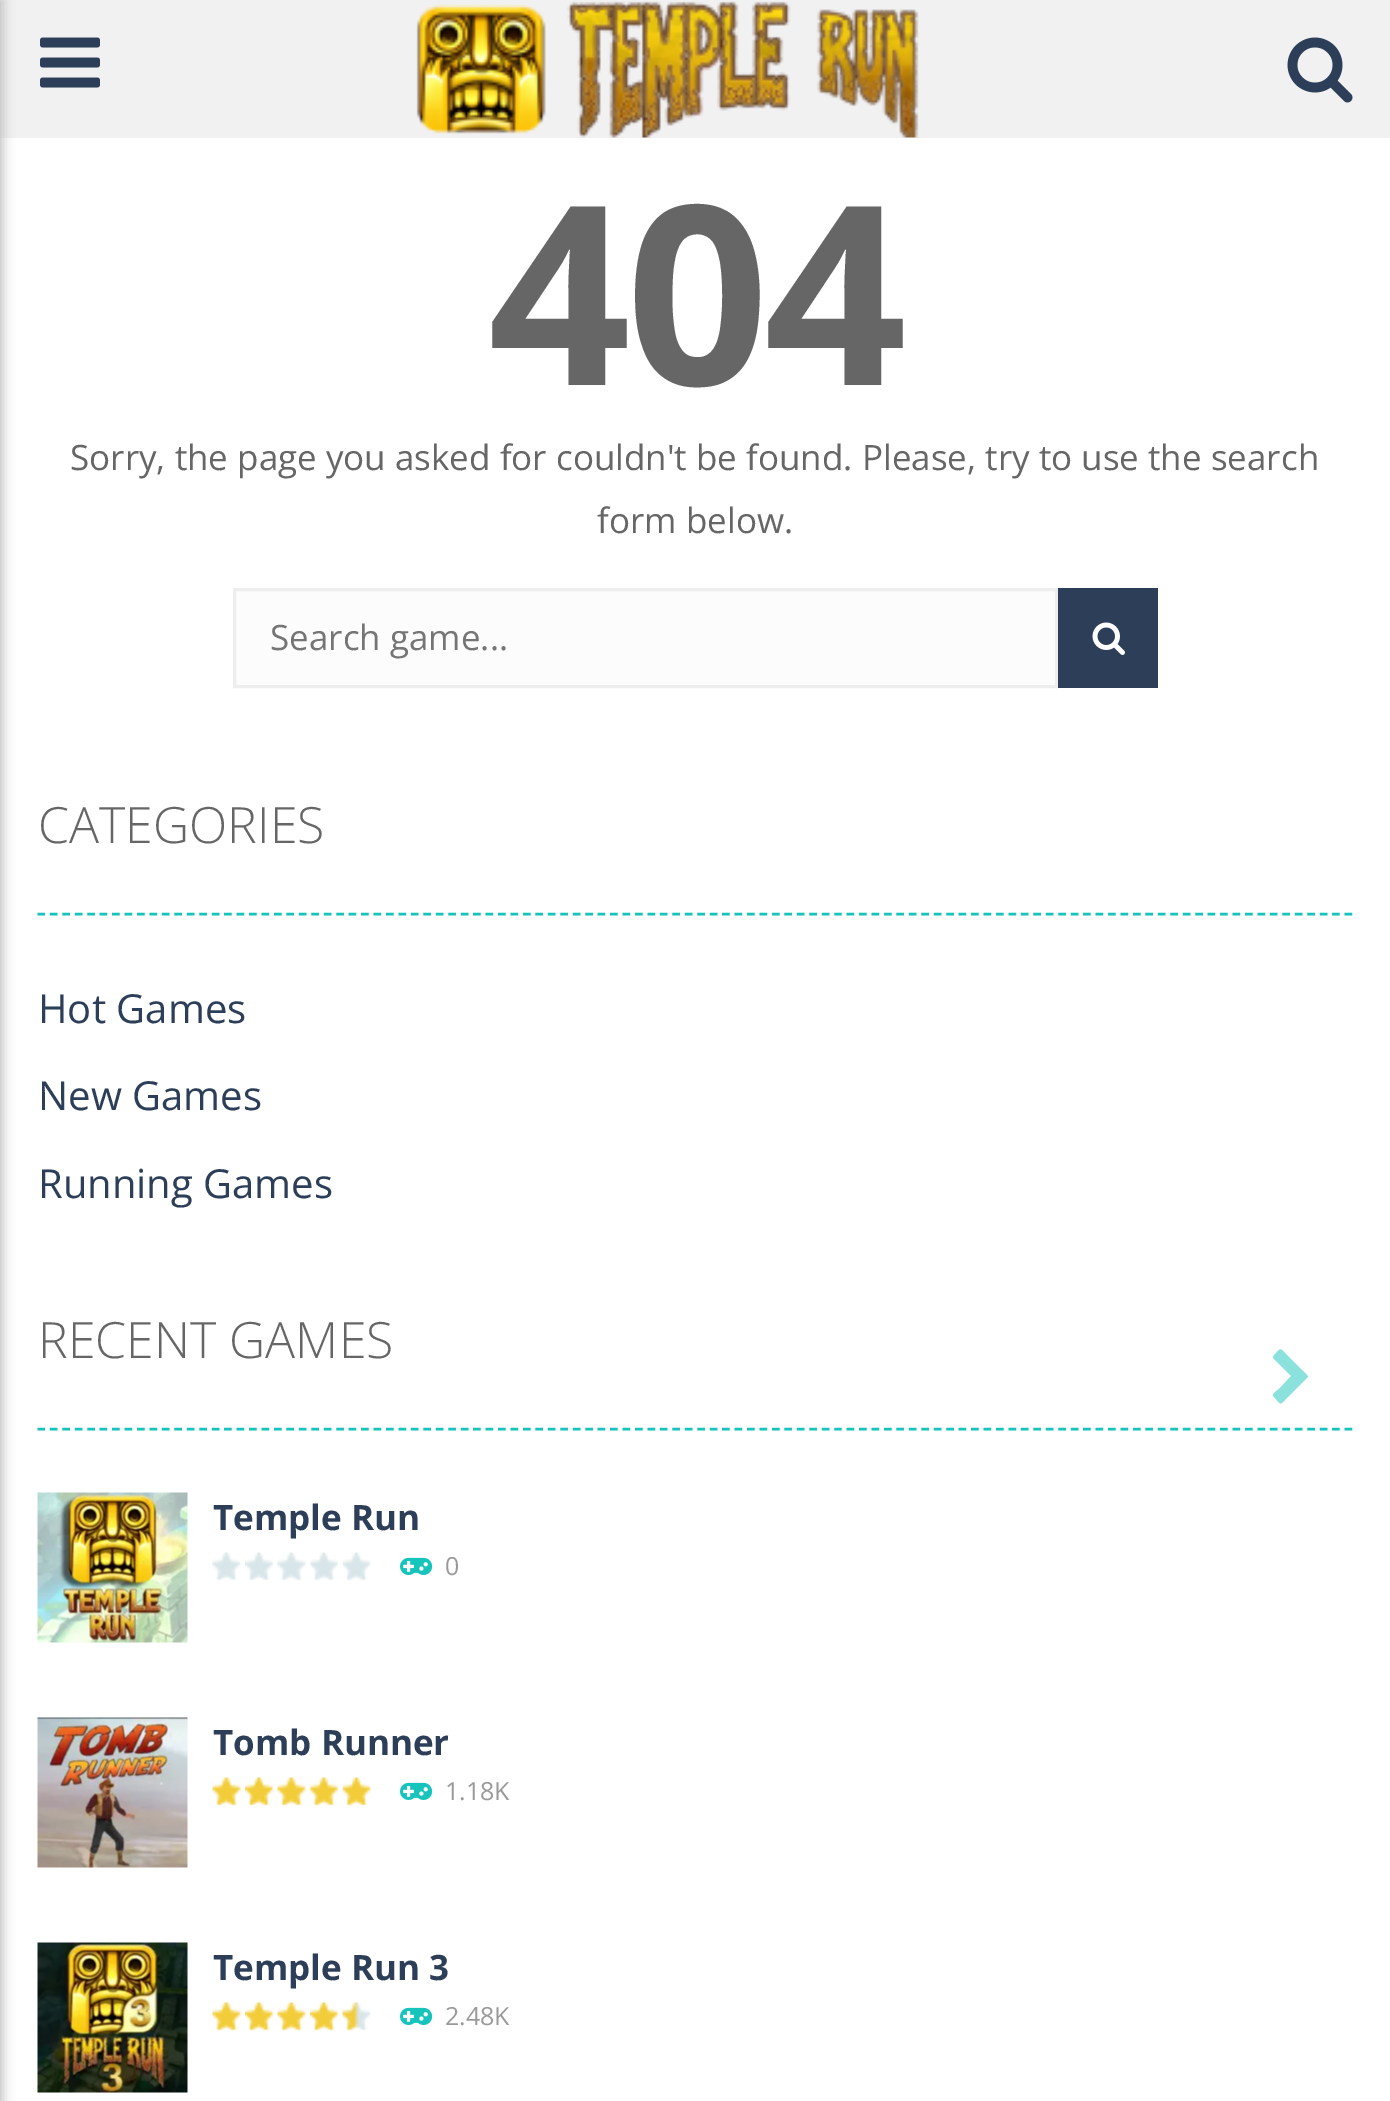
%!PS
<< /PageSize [1390 2101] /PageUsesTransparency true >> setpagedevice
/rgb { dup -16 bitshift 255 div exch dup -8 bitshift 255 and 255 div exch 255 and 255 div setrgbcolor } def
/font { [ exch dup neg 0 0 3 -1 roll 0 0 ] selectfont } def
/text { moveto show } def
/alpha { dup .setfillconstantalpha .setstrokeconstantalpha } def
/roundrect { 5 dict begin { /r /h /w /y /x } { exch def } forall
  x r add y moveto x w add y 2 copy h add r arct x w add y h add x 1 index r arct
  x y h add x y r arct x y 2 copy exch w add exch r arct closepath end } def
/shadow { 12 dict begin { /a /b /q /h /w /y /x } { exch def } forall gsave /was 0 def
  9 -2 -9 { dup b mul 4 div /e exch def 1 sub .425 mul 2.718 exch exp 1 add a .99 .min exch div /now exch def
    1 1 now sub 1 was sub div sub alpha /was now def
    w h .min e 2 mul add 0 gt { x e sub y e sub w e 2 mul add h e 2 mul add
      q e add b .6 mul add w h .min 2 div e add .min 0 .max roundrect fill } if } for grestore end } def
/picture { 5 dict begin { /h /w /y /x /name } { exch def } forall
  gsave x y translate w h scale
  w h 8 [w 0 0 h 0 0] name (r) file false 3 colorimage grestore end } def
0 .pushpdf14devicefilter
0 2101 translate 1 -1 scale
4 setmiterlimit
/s1 { /OpenSans-Regular 35 font 16#666666 rgb } def
/s2 { /OpenSans-Regular 35 font 16#757575 rgb } def
/s3 { /OpenSans-Light 50 font 16#666666 rgb } def
/s4 { /OpenSans-Regular 40 font 16#2D3E58 rgb } def
/s5 { /OpenSans-Bold 35 font 16#2D3E58 rgb } def
/s6 { /OpenSans-Regular 25 font 16#999999 rgb } def
16#F1F1F1 rgb
0 0 1390 2101 rectfill
16#FFFFFF rgb
0 138 1390 1963 rectfill
16#C0C0C0 rgb
-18 0 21 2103 0 6 1 shadow
(pic1.raw) 40 37 60 51 picture
(pic2.raw) 416 1 503 137 picture
(pic3.raw) 1287 37 66 66 picture
/OpenSans-Bold 250 font
16#666666 rgb
488 385 moveto -5 0 (404) ashow
s1
(Sorry, the page you asked for couldn't be found. Please, try to use the search) 70 470 text
(form below.) 597 533 text
16#FCFCFC rgb
234.5 589.5 moveto 1056.5 589.5 lineto 1056.5 686.5 lineto 234.5 686.5 lineto closepath gsave fill grestore
16#EEEEEE rgb
3 setlinewidth
stroke
s2
(Search game...) 270 650 text
16#2D3E58 rgb
1058 588 100 100 rectfill
(pic4.raw) 1092 622 33 33 picture
16#16C4BB rgb
2.5 setlinewidth
[7.5 4.95] 0 setdash
37.5 914 moveto 1352.5 914 lineto stroke
s3
(CATEGORIES) 38 843 text
s4
(Hot Games) 38 1023 text
(New Games) 38 1110 text
(Running Games) 38 1198 text
16#16C4BB rgb
37.5 1429 moveto 1352.5 1429 lineto stroke
s3
(RECENT GAMES) 38 1358 text
16#8BE2DD rgb
1307 1378 moveto 1286 1399 lineto 1280 1405 1281 1405 1275 1398 curveto 1270 1394 1276 1392 1280 1388 curveto 1291 1376 lineto 1273 1358 lineto 1273 1356 1275 1354 1276 1353 curveto 1281 1348 1280 1348 1286 1354 curveto 1303 1371 lineto 1303 1371 1308 1375 1308 1377 curveto closepath fill
(pic5.raw) 37 1492 151 151 picture
s5
(Temple Run) 213 1530 text
(pic6.raw) 212 1552 29 29 picture
(pic7.raw) 245 1552 29 29 picture
(pic6.raw) 277 1552 29 29 picture
(pic8.raw) 310 1552 29 29 picture
(pic9.raw) 342 1552 29 29 picture
(pic10.raw) 400 1557 33 18 picture
s6
(0) 445 1575 text
(pic11.raw) 37 1717 151 151 picture
s5
(Tomb Runner) 213 1755 text
(pic12.raw) 212 1777 30 29 picture
(pic13.raw) 245 1777 29 29 picture
(pic12.raw) 277 1777 30 29 picture
(pic14.raw) 309 1777 30 29 picture
(pic15.raw) 342 1777 29 29 picture
(pic10.raw) 400 1782 33 18 picture
s6
(1.18K) 445 1800 text
(pic16.raw) 37 1942 151 151 picture
s5
(Temple Run 3) 213 1980 text
(pic12.raw) 212 2002 30 29 picture
(pic13.raw) 245 2002 29 29 picture
(pic17.raw) 277 2002 30 29 picture
(pic13.raw) 310 2002 29 29 picture
(pic18.raw) 342 2002 29 29 picture
(pic10.raw) 400 2007 33 18 picture
s6
(2.48K) 445 2025 text
.poppdf14devicefilter showpage
